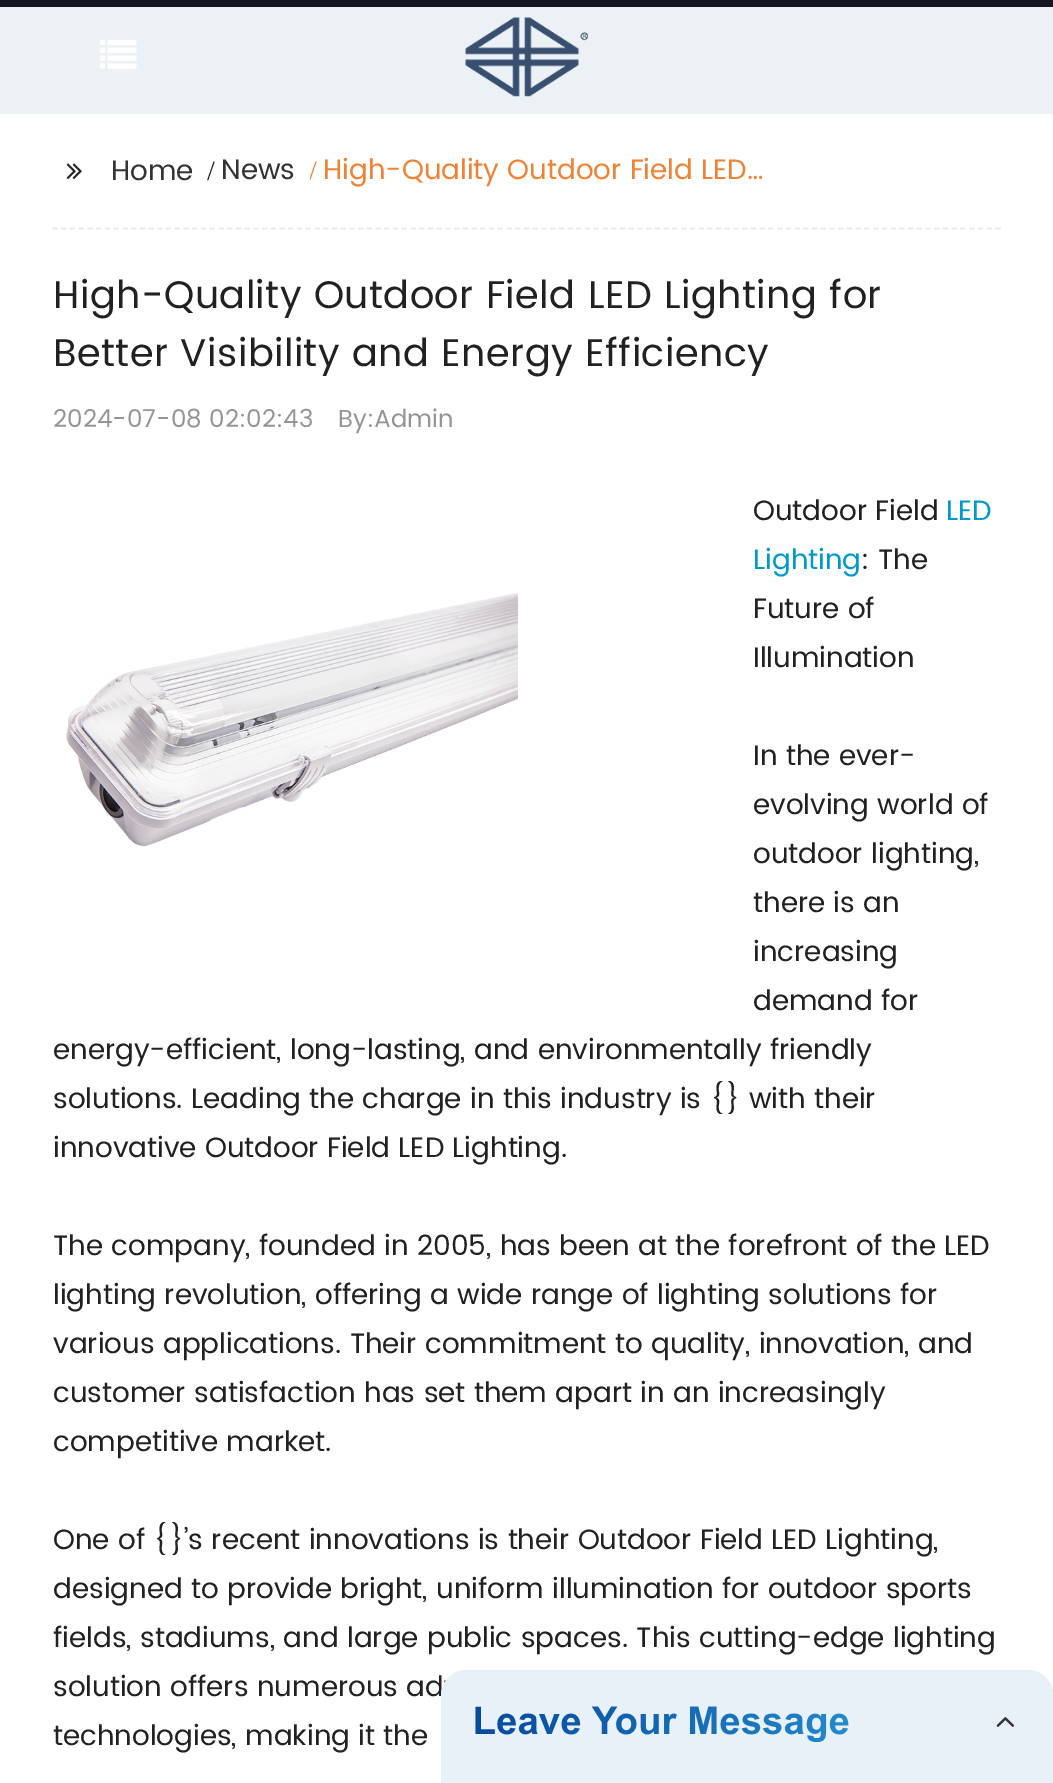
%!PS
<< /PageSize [1053 1783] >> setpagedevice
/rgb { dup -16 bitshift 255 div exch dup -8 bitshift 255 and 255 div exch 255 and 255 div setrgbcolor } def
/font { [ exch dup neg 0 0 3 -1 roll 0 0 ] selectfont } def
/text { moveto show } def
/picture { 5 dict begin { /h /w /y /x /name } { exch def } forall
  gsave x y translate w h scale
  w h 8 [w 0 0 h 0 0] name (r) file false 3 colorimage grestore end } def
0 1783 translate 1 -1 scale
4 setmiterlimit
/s1 { /Poppins-Regular 28 font 16#333333 rgb } def
/s2 { /LiberationSerif-Regular 28 font 16#212121 rgb } def
/s3 { /LiberationSerif-Regular 28 font 16#F08234 rgb } def
/s4 { /Poppins-Regular 28 font 16#F08234 rgb } def
/s5 { /Poppins-Regular 24.5 font 16#939498 rgb } def
/s6 { /Poppins-Regular 28 font 16#212121 rgb } def
/s7 { /Poppins-Regular 28 font 16#0099CC rgb } def
16#EBF1F5 rgb
0 0 1053 1783 rectfill
16#161622 rgb
0 0 1053 7 rectfill
(pic1.raw) 99 40 38 29 picture
(pic2.raw) 465 17 123 80 picture
16#FFFFFF rgb
0 114 1053 1669 rectfill
16#E8E9EC rgb
1.8 setlinewidth
[5.25 3.48] 0 setdash
52.5 228.5 moveto 1001 228.5 lineto stroke
(pic3.raw) 66 163 16 16 picture
s1
(Home) 111 180 text
s2
(/) 207 180 text
s1
(News) 221 179 text
gsave
310 149 474 44 rectclip
s3
(/) 309 180 text
grestore
s4
(High-Quality Outdoor Field LED…) 323 179 text
/Poppins-Regular 38.5 font
16#212121 rgb
53 308 moveto 0.55 0 (High-Quality Outdoor Field LED Lighting for) ashow
53 366 moveto 0.55 0 (Better Visibility and Energy Efficiency) ashow
s5
(2024-07-08 02:02:43) 53 427 text
(By:Admin) 338 427 text
s6
(Outdoor Field) 753 520 text
s7
(LED) 946 520 text
(Lighting) 753 569 text
s6
(: The) 861 569 text
(pic4.raw) 66 593 452 254 picture
(Future of) 753 618 text
(Illumination) 753 667 text
(In the ever-) 753 765 text
(evolving world of) 753 814 text
(outdoor lighting,) 753 863 text
(there is an) 753 912 text
(increasing) 753 961 text
(demand for) 753 1010 text
(energy-efficient, long-lasting, and environmentally friendly) 53 1059 text
(solutions. Leading the charge in this industry is {} with their) 53 1108 text
(innovative Outdoor Field LED Lighting.) 53 1157 text
(The company, founded in 2005, has been at the forefront of the LED) 53 1255 text
(lighting revolution, offering a wide range of lighting solutions for) 53 1304 text
(various applications. Their commitment to quality, innovation, and) 53 1353 text
(customer satisfaction has set them apart in an increasingly) 53 1402 text
(competitive market.) 53 1451 text
(One of {}’s recent innovations is their Outdoor Field LED Lighting,) 53 1549 text
(designed to provide bright, uniform illumination for outdoor sports) 53 1598 text
(fields, stadiums, and large public spaces. This cutting-edge lighting) 53 1647 text
(solution offers numerous ad) 53 1696 text
(technologies, making it the) 53 1745 text
(pic5.raw) 441 1670 612 113 picture
showpage
